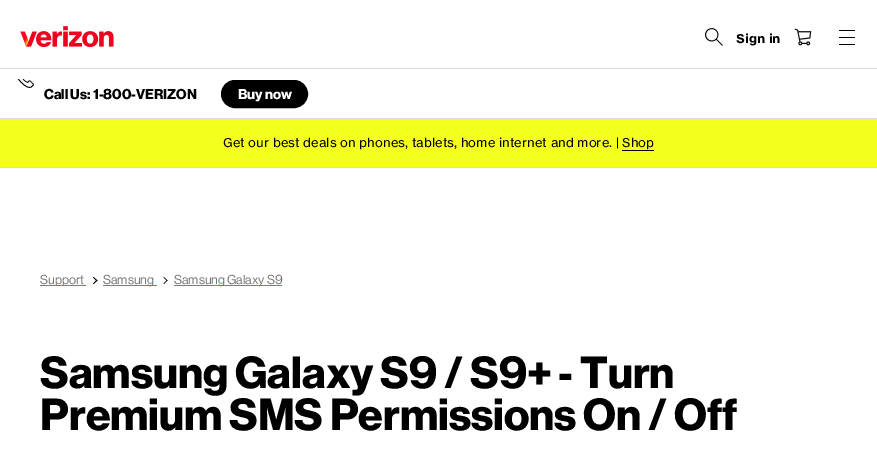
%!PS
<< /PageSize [877 460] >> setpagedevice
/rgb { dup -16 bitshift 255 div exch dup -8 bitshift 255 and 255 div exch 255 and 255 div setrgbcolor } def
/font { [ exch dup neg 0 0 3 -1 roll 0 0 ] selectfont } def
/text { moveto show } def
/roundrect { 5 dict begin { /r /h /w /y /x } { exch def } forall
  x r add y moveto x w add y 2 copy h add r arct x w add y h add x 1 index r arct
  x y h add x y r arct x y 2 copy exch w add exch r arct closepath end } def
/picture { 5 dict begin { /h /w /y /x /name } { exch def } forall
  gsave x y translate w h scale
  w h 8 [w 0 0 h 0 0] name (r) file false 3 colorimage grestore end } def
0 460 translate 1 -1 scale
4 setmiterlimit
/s1 { /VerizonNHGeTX-Bold 12 font 16#000000 rgb } def
/s2 { /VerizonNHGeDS-Bold 14 font 16#000000 rgb } def
/s3 { /VerizonNHGeDS-Bold 14 font 16#FFFFFF rgb } def
/s4 { /VerizonNHGeTX-Regular 12 font 16#000000 rgb } def
/s5 { /VerizonNHGeDS-Regular 12.75 font 16#747676 rgb } def
/s6 { /VerizonNHGeDS-Bold 44 font 16#000000 rgb } def
16#FFFFFF rgb
0 0 877 460 rectfill
16#D8DADA rgb
0 167 877 1 rectfill
(pic1.raw) 20 26 94 21 picture
(pic2.raw) 705 28 18 18 picture
s1
(Sign in) 736 43 text
(pic3.raw) 794 28 18 18 picture
839 30 16 1 rectfill
839 44 16 1 rectfill
839 37 16 1 rectfill
16#D8DADA rgb
0 68 877 1 rectfill
(pic4.raw) 17 79 17 9 picture
s2
(Call Us: 1-800-VERIZON) 44 99 text
221.5 80.5 86 27 13.5 roundrect gsave fill grestore
stroke
s3
(Buy now) 238 99 text
16#F5FF1E rgb
0 119 877 48 rectfill
16#D8DADA rgb
0 118 877 1 rectfill
s4
(Get our best deals on phones, tablets, home internet and more. | Shop) 223 147 text
622 150 32 1 rectfill
16#428BCA rgb
40 285 46 1 rectfill
s5
(Support) 40 284 text
16#000000 rgb
93 277.5 moveto 93.5 277 lineto 97.5 280.5 lineto 96.5 281 lineto closepath fill
93 283.5 moveto 96.5 280 lineto 97.5 280.5 lineto 93.5 284 lineto closepath fill
16#428BCA rgb
103 285 54 1 rectfill
s5
(Samsung) 103 284 text
16#000000 rgb
163.5 277.5 moveto 164 277 lineto 167.5 280.5 lineto 167 281 lineto closepath fill
163.5 283.5 moveto 167 280 lineto 167.5 280.5 lineto 164 284 lineto closepath fill
16#428BCA rgb
174 285 108 1 rectfill
s5
(Samsung Galaxy S9) 174 284 text
s6
(Samsung Galaxy S9 / S9+ - Turn) 40 388 text
(Premium SMS Permissions On / Off) 40 430 text
showpage
